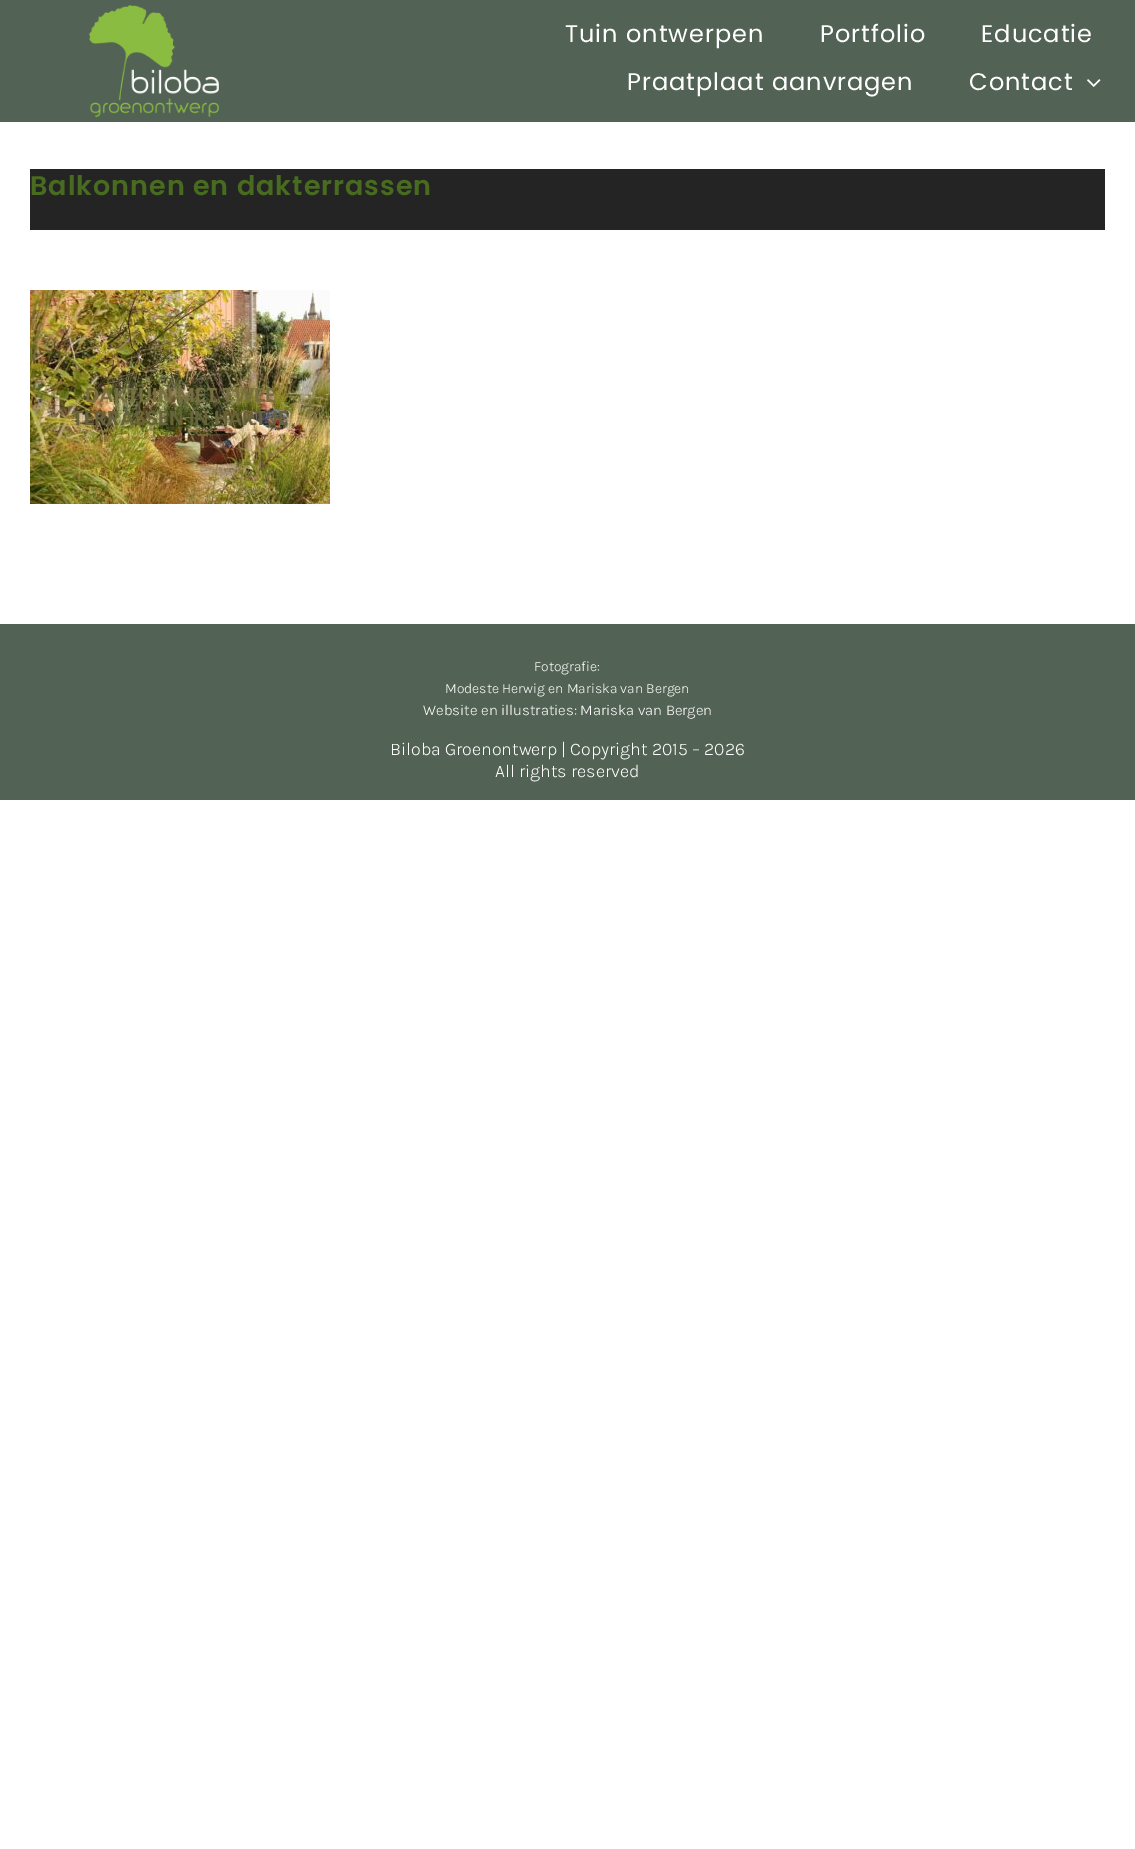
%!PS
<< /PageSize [1135 1849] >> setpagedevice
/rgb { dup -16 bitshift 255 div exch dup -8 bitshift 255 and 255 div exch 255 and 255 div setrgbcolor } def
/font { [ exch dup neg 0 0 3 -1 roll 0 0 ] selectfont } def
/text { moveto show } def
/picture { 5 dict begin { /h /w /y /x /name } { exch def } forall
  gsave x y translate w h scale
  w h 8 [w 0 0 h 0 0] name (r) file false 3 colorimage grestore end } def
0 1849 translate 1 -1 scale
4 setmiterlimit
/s1 { /Poppins-SemiBold 20 font 16#786F40 rgb } def
/s2 { /Poppins-SemiBold 20 font 16#68633A rgb } def
/s3 { /Poppins-SemiBold 20 font 16#7F6338 rgb } def
/s4 { /Karla-Light 14 font 16#FFFFFF rgb } def
/s5 { /Karla-Light 15 font 16#FFFFFF rgb } def
/s6 { /Karla-Light 18 font 16#FFFFFF rgb } def
16#FFFFFF rgb
0 0 1135 1849 rectfill
16#526254 rgb
0 0 1135 122 rectfill
(pic1.raw) 89 5 130 112 picture
/Poppins-Regular 24 font
16#FFFFFF rgb
565 42 moveto 1 0 (Tuin ontwerpen) ashow
820 42 moveto 1 0 (Portfolio) ashow
981 42 moveto 1 0 (Educatie) ashow
627 90 moveto 1 0 (Praatplaat aanvragen) ashow
969 90 moveto 1 0 (Contact) ashow
(pic2.raw) 1087 79 14 8 picture
16#242424 rgb
30 169 1075 61 rectfill
/Poppins-SemiBold 27 font
16#486B20 rgb
30 195 moveto 1 0 (Balkonnen en dakterrassen) ashow
(pic3.raw) 30 290 300 214 picture
s1
(DAKTUIN MET TWEE) 85 402 text
s2
(TERRASSEN IN HARTJE) 72 425 text
s3
(T) 197 448 text
16#526254 rgb
0 624 1135 176 rectfill
s4
(Fotografie:) 534 671 text
(Modeste Herwig en Mariska van Bergen) 445 693 text
s5
(Website en illustraties: Mariska van Bergen) 423 715 text
s6
(Biloba Groenontwerp | Copyright 2015 – 2026) 390 755 text
(All rights reserved) 495 777 text
showpage
